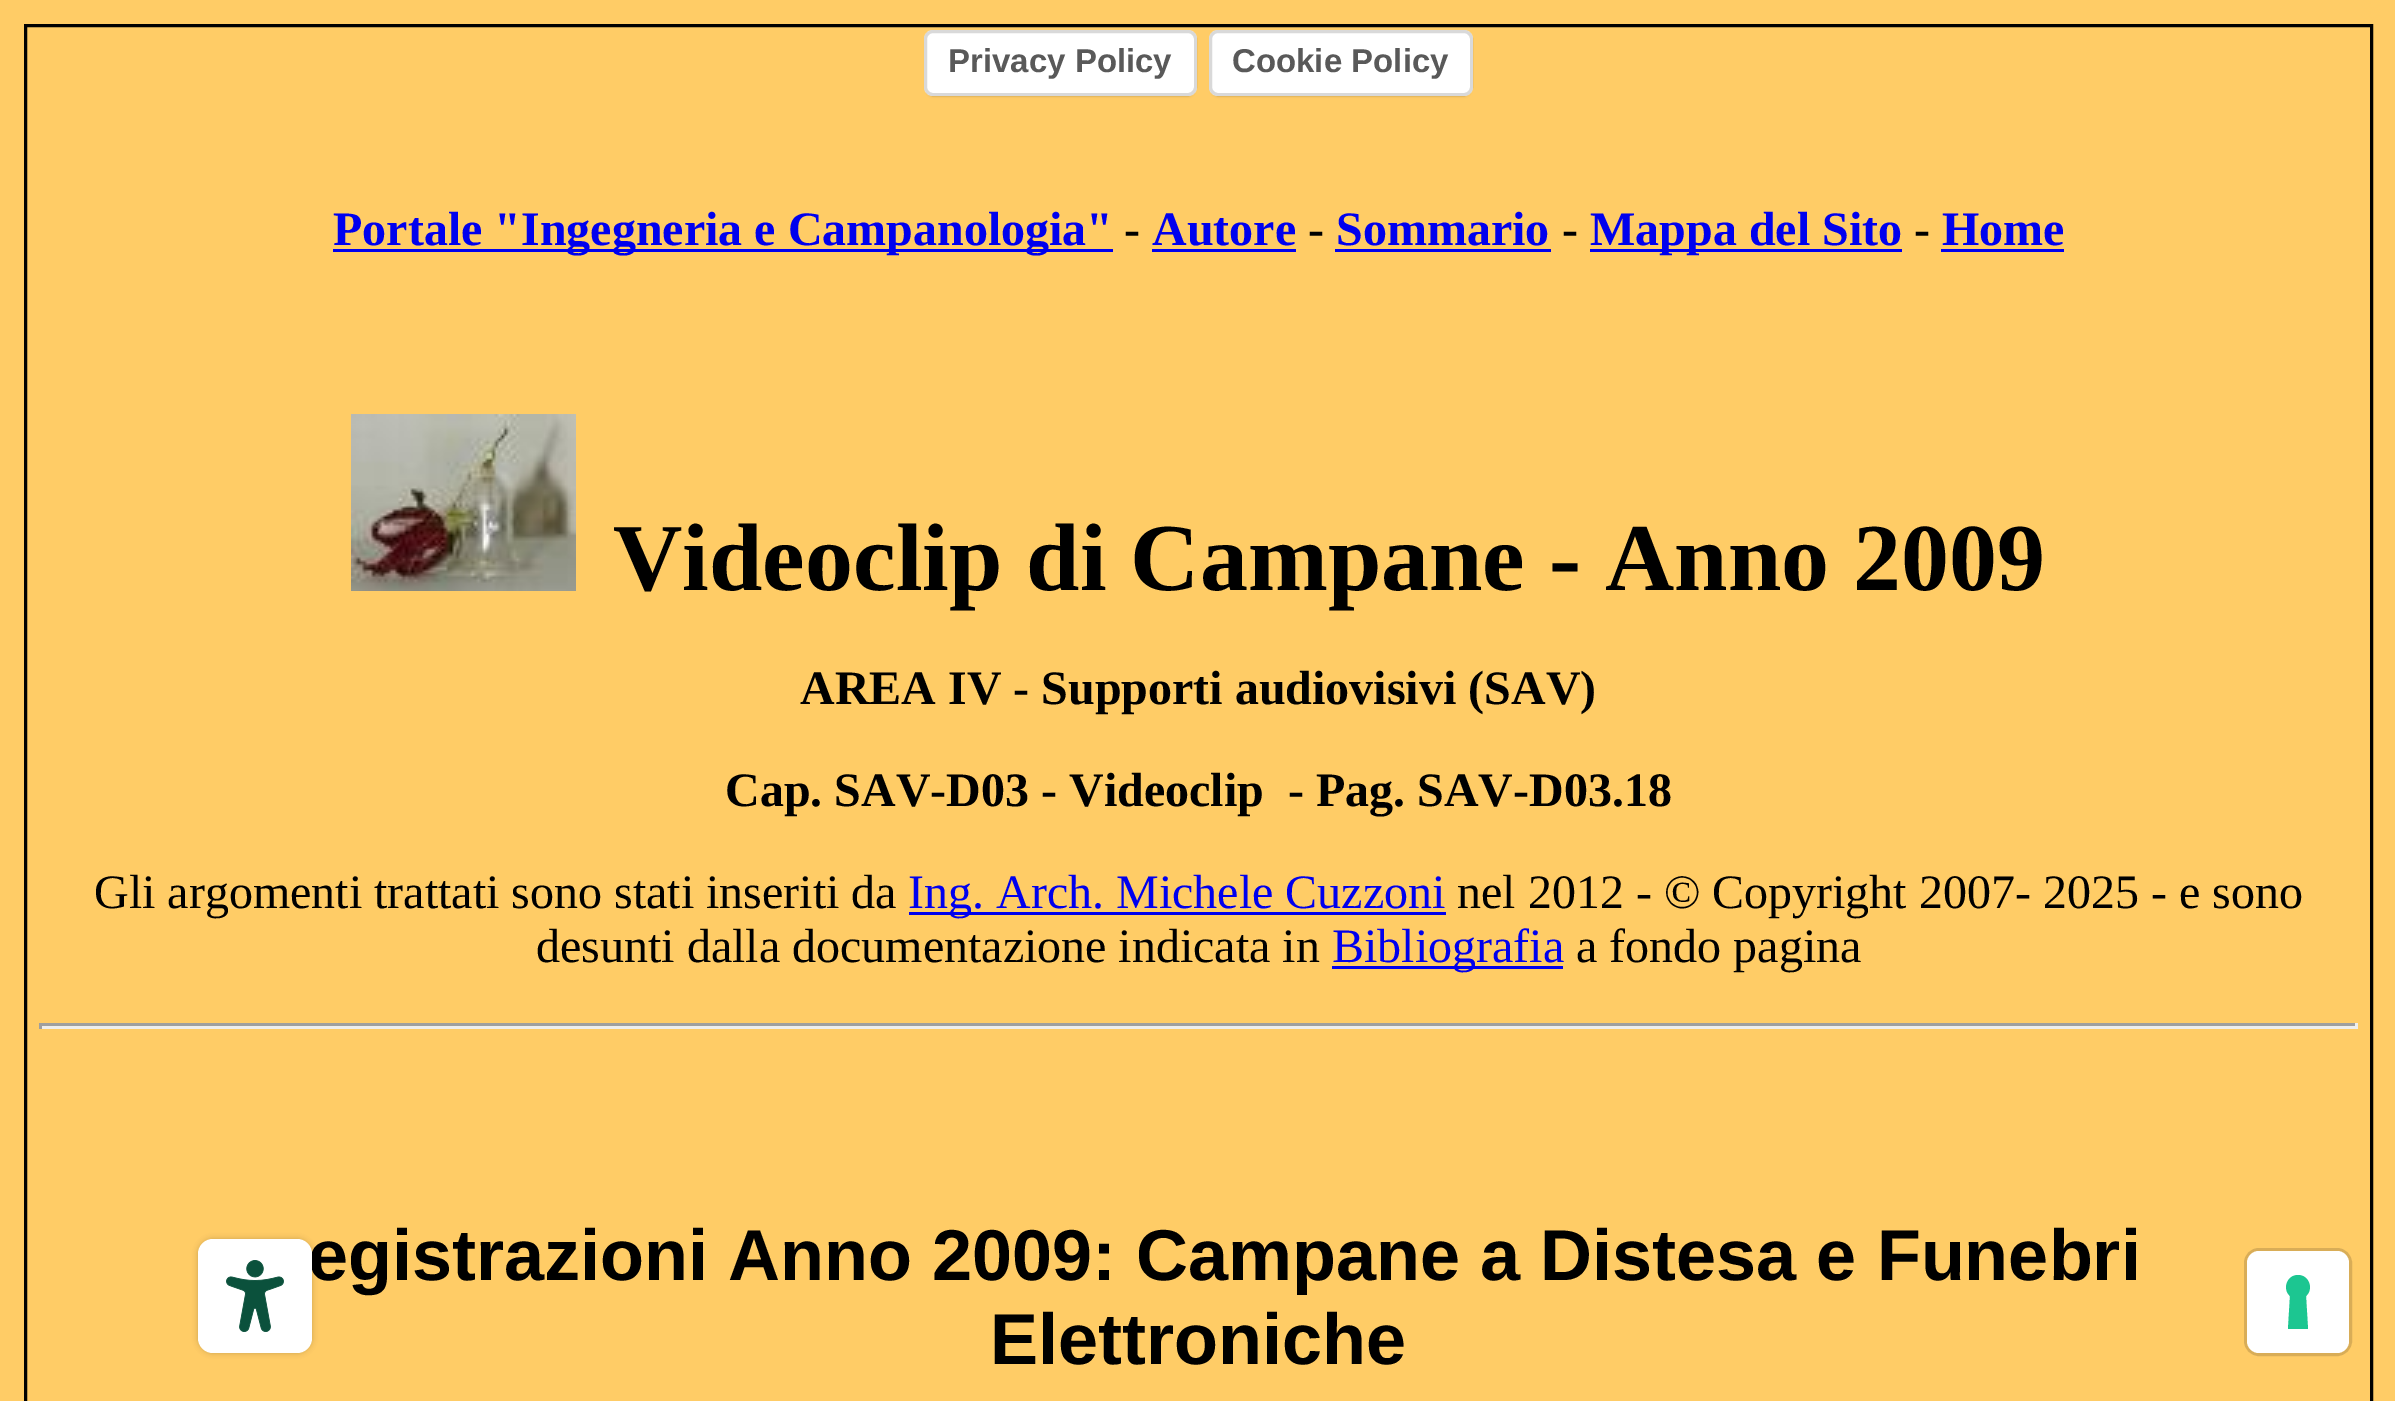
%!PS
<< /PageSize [2395 1401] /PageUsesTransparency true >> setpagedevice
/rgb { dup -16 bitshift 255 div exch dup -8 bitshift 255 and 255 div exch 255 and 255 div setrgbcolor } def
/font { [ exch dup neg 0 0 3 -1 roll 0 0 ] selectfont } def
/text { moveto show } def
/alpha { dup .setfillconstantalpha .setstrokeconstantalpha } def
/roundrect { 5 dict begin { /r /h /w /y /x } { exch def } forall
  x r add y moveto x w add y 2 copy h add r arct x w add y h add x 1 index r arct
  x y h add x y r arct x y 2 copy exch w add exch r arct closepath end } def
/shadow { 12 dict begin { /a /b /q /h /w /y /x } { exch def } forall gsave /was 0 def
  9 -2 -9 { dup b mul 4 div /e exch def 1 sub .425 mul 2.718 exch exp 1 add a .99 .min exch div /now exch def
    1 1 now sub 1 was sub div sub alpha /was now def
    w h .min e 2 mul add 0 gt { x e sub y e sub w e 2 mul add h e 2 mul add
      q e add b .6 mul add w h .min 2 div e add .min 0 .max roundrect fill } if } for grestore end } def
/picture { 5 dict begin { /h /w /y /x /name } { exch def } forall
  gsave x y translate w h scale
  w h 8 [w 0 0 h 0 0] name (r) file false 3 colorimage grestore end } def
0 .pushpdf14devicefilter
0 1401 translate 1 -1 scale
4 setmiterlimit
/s1 { /LiberationSans-Bold 33 font 16#595959 rgb } def
/s2 { /LiberationSerif-Bold 48 font 16#0000EE rgb } def
/s3 { /LiberationSerif-Bold 48 font 16#000000 rgb } def
/s4 { /LiberationSerif-Bold 96 font 16#000000 rgb } def
/s5 { /LiberationSerif-Regular 48 font 16#000000 rgb } def
/s6 { /LiberationSerif-Regular 48 font 16#0000EE rgb } def
/s7 { /LiberationSans-Bold 72 font 16#000000 rgb } def
16#FFCC66 rgb
0 0 2395 1401 rectfill
16#000000 rgb
3 setlinewidth
25.5 25.5 2346 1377 rectstroke
927 36 267 60 6 1.5 0.15 shadow
16#FFFFFF rgb
924 30 273 66 9 roundrect fill
0.15 alpha
16#000000 rgb
925.5 31.5 270 63 7.5 roundrect stroke
1 alpha
s1
(Privacy Policy) 948 72 text
16#000000 rgb
1212 36 258 60 6 1.5 0.15 shadow
16#FFFFFF rgb
1209 30 264 66 9 roundrect fill
0.15 alpha
16#000000 rgb
1210.5 31.5 261 63 7.5 roundrect stroke
1 alpha
s1
(Cookie Policy) 1232 72 text
16#0000EE rgb
333 249 780 3 rectfill
s2
(Portale "Ingegneria e Campanologia") 333 245 text
s3
(-) 1124 245 text
s2
(Autore) 1152 245 text
1152 249 144 3 rectfill
s3
(-) 1308 245 text
s2
(Sommario) 1336 245 text
1335 249 216 3 rectfill
s3
(-) 1562 245 text
16#0000EE rgb
1590 249 312 3 rectfill
(Mappa del Sito) 1590 245 text
s3
(-) 1914 245 text
s2
(Home) 1942 245 text
1941 249 123 3 rectfill
(pic1.raw) 351 414 225 177 picture
s4
(Videoclip di Campane - Anno 2009) 613 590 text
s3
(AREA IV - Supporti audiovisivi \(SAV\)) 800 704 text
(Cap. SAV-D03 - Videoclip  - Pag. SAV-D03.18) 725 806 text
s5
(Gli argomenti trattati sono stati inseriti da) 94 908 text
16#0000EE rgb
909 912 537 3 rectfill
(Ing. Arch. Michele Cuzzoni) 908 908 text
s5
(nel 2012 - © Copyright 2007- 2025 - e sono) 1457 908 text
(desunti dalla documentazione indicata in) 536 962 text
16#0000EE rgb
1332 966 231 3 rectfill
(Bibliografia) 1332 962 text
s5
(a fondo pagina) 1576 962 text
16#9F9F9F rgb
39 1023 2319 3 rectfill
16#EEEEEE rgb
2355 1023 3 6 rectfill
39 1026 2319 3 rectfill
16#9F9F9F rgb
39 1023 3 6 rectfill
s7
(egistrazioni Anno 2009: Campane a Distesa e Funebri) 308 1280 text
(Elettroniche) 990 1364 text
198 1239 114 114 15 3 0.2 shadow
16#FFFFFF rgb
198 1239 114 114 15 roundrect fill
(pic2.raw) 226 1260 58 72 picture
16#D9AD57 rgb
2245.5 1249.5 105 105 13.5 roundrect stroke
16#FFFFFF rgb
2247 1251 102 102 12 roundrect fill
16#1CC691 rgb
2298 1275 moveto 2309 1275 2314 1289 2306 1296 curveto 2308 1329 lineto 2288 1329 lineto 2290 1296 lineto 2282 1289 2287 1275 2298 1275 curveto closepath eofill
.poppdf14devicefilter showpage
